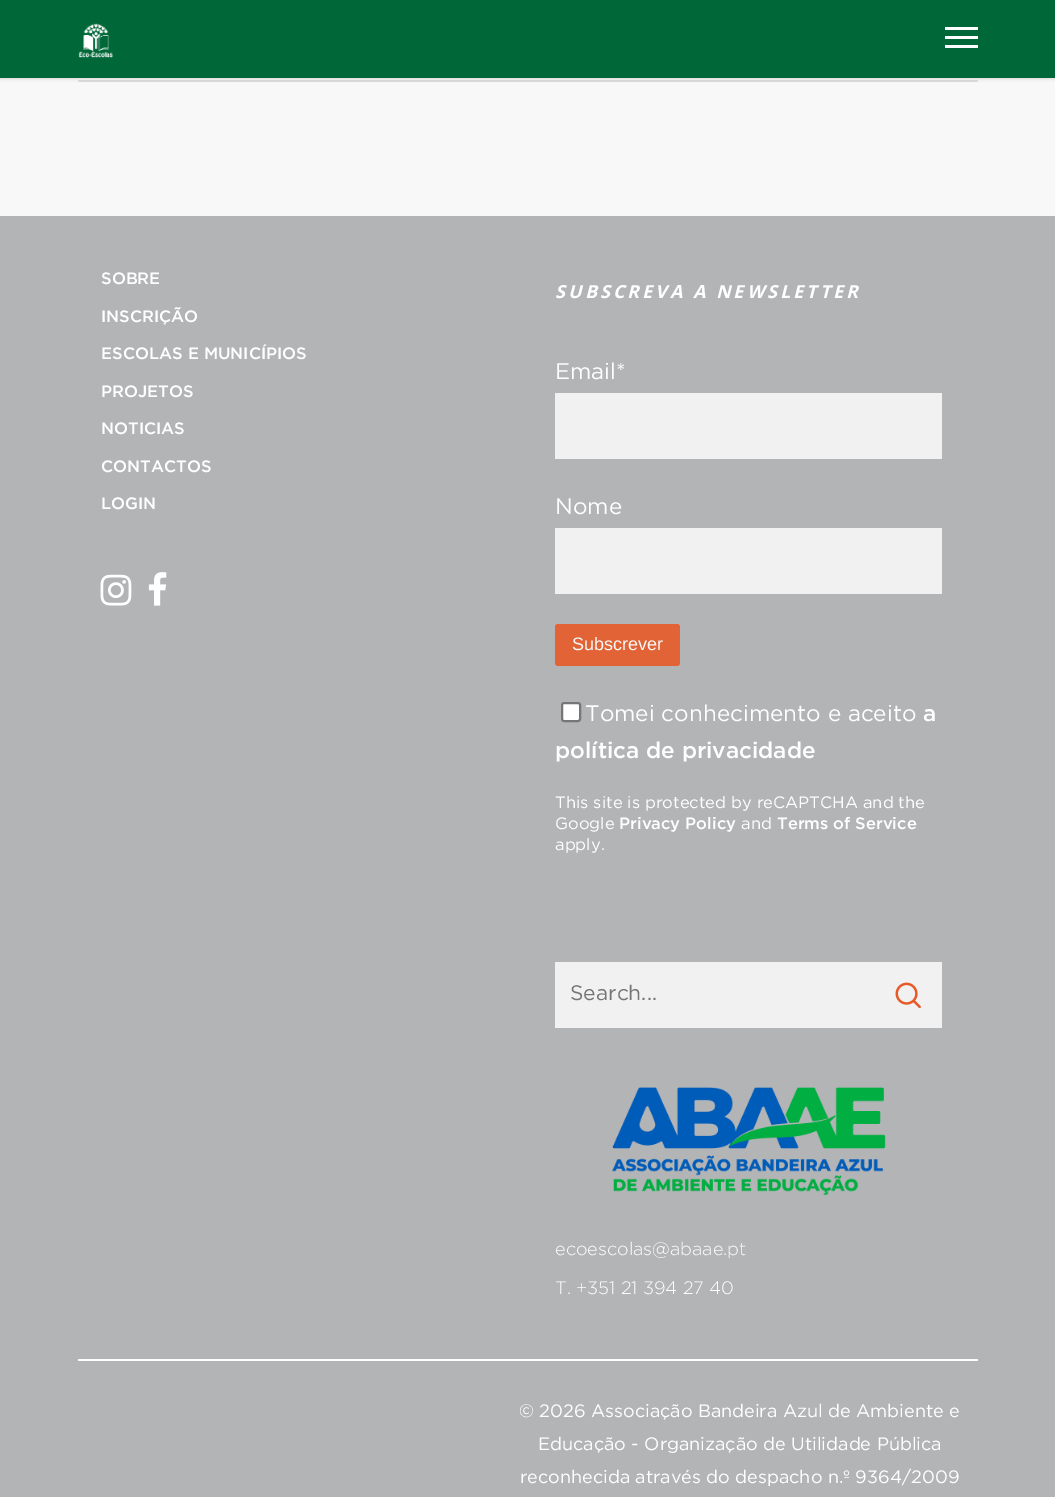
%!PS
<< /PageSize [1055 1497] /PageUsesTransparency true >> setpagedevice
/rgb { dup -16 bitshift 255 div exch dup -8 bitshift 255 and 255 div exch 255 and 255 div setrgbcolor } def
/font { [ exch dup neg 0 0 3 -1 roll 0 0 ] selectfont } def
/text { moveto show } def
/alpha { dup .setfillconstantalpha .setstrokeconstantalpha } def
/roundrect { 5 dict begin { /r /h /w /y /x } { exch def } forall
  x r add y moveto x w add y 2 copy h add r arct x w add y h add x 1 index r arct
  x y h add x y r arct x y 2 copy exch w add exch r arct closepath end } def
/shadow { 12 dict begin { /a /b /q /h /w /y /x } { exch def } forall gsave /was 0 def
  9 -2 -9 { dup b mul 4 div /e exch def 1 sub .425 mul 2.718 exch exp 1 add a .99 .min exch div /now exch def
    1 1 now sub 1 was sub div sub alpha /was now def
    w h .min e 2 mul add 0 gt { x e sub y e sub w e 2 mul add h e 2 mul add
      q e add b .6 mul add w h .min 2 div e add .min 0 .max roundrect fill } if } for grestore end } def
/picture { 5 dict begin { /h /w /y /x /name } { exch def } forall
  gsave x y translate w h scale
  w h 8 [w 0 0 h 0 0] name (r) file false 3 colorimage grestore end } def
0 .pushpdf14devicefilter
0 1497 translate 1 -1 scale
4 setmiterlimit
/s1 { /Gotham-Medium 16.5 font 16#FFFFFF rgb } def
/s2 { /Gotham-Regular 22.5 font 16#FFFFFF rgb } def
/s3 { /LiberationSans-Regular 18 font 16#F7F8F8 rgb } def
/s4 { /Gotham-Medium 22.5 font 16#FFFFFF rgb } def
/s5 { /Gotham-Regular 16.5 font 16#FFFFFF rgb } def
/s6 { /Gotham-Regular 21 font 16#757575 rgb } def
/s7 { /Gotham-Light 18 font 16#FFFFFF rgb } def
/s8 { /Gotham-Regular 18 font 16#FFFFFF rgb } def
16#B2B4B6 rgb
0 0 1055 1497 rectfill
16#F8F8F8 rgb
0 78 1055 138 rectfill
16#DDDDDD rgb
78 80 900 2 rectfill
16#000000 rgb
0 0 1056 78 0 2 0.22 shadow
16#006838 rgb
0 0 1055 78 rectfill
(pic1.raw) 78 23 35 35 picture
16#FFFFFF rgb
945 27 33 3 rectfill
945 45 33 3 rectfill
945 36 33 3 rectfill
78 1359 900 2 rectfill
s1
(SOBRE) 101 284 text
(INSCRIÇÃO) 101 322 text
(ESCOLAS E MUNICÍPIOS) 101 359 text
(PROJETOS) 101 397 text
(NOTICIAS) 101 434 text
(CONTACTOS) 101 472 text
(LOGIN) 101 509 text
(pic2.raw) 100 574 32 32 picture
(pic3.raw) 148 572 19 34 picture
/OpenSans-BoldItalic 18 font
555 298 moveto 3 0 (SUBSCREVA A NEWSLETTER) ashow
s2
(Email*) 555 379 text
16#F1F1F1 rgb
555 393 387 66 rectfill
s2
(Nome) 555 514 text
16#F1F1F1 rgb
555 528 387 66 rectfill
16#E26336 rgb
555 624 125 42 3 roundrect fill
s3
(Subscrever) 572 650 text
16#FFFFFF rgb
562 703 18 18 2 roundrect gsave fill grestore
16#767676 rgb
2 setlinewidth
stroke
s2
(Tomei conhecimento e aceito) 585 721 text
s4
(a) 923 721 text
(política de privacidade) 555 758 text
s5
(This site is protected by reCAPTCHA and the) 555 808 text
(Google) 555 829 text
s1
(Privacy Policy) 619 829 text
s5
(and) 741 829 text
s1
(Terms of Service) 777 829 text
s5
(apply.) 555 850 text
16#F1F1F1 rgb
555 962 387 66 rectfill
s6
(Search...) 570 1000 text
(pic4.raw) 895 982 26 27 picture
(pic5.raw) 612 1087 274 109 picture
s7
(ecoescolas@abaae.pt) 555 1255 text
(T. +351 21 394 27 40) 555 1294 text
s8
(© 2026 Associação Bandeira Azul de Ambiente e) 519 1417 text
(Educação - Organização de Utilidade Pública) 538 1450 text
(reconhecida através do despacho n.º 9364/2009) 520 1483 text
.poppdf14devicefilter showpage
